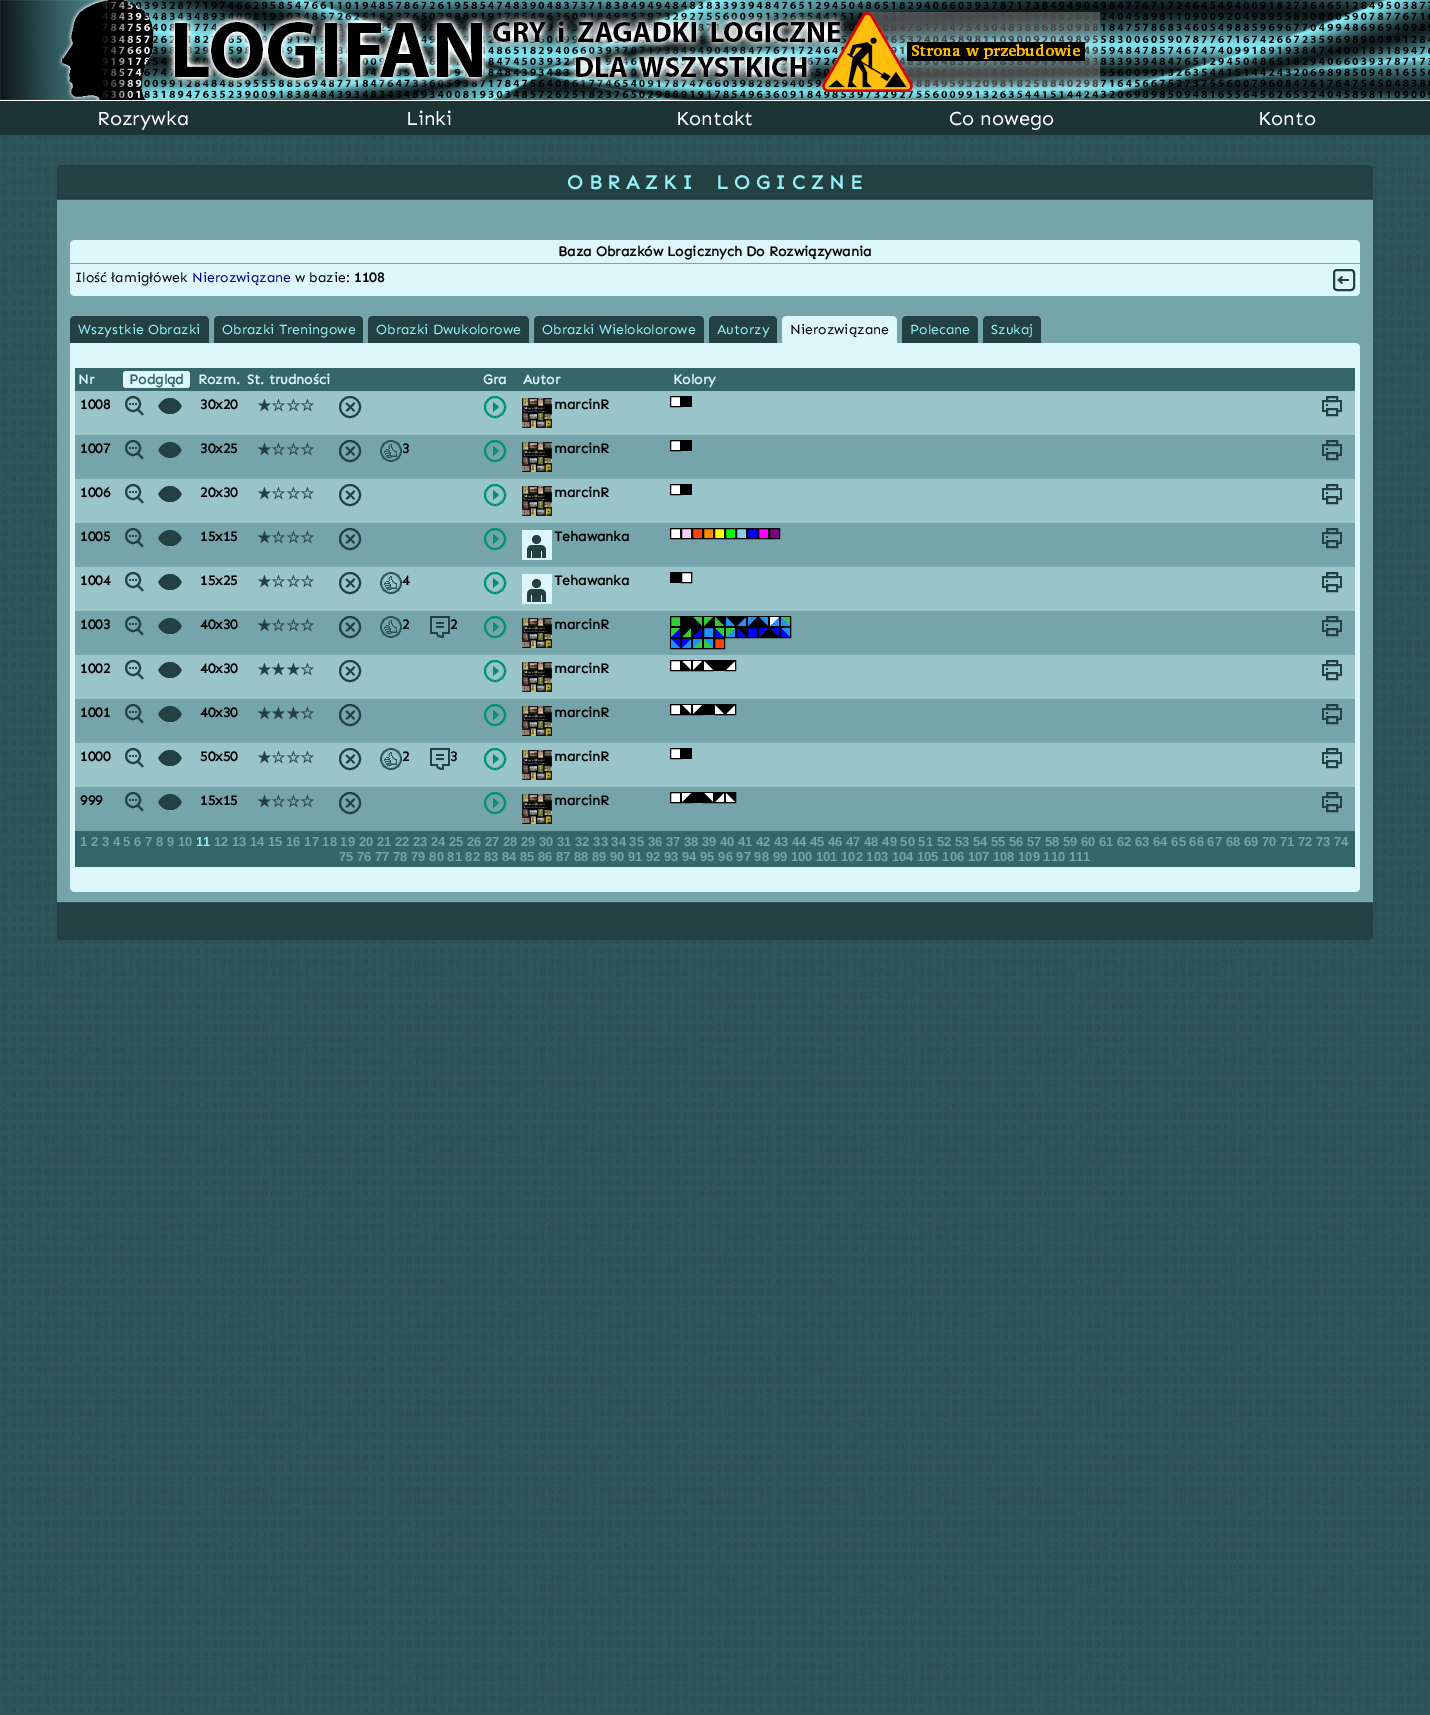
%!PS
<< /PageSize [1430 1715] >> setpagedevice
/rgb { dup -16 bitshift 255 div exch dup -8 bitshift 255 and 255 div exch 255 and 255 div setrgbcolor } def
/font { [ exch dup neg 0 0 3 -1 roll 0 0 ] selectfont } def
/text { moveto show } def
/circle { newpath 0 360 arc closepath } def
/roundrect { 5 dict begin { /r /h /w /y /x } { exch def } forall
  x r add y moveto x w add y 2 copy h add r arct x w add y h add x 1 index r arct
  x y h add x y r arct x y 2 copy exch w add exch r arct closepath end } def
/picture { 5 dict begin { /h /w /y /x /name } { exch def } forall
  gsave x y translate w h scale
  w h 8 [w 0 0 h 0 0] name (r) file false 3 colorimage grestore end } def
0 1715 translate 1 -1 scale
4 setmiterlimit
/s1 { /Sen-Regular 20 font 16#FFFFFF rgb } def
/s2 { /Sen-Bold 20 font 16#96F0F6 rgb } def
/s3 { /Sen-Bold 14 font 16#000000 rgb } def
/s4 { /Sen-Regular 14 font 16#000000 rgb } def
/s5 { /Sen-Regular 14 font 16#000080 rgb } def
/s6 { /Sen-Regular 14 font 16#96F0F6 rgb } def
/s7 { /Sen-Bold 14 font 16#DDF6F9 rgb } def
/s8 { /Sen-Bold 14 font 16#35666A rgb } def
/s9 { /DejaVuSans-Bold 16 font 16#234042 rgb } def
/s10 { /LiberationSans-Bold 13 font 16#75A4AA rgb } def
/s11 { /LiberationSans-Bold 13 font 16#96F0F6 rgb } def
16#2F5458 rgb
0 0 1430 1715 rectfill
(pic1.raw) 2 970 1426 744 picture
(pic2.raw) 2 135 1426 831 picture
(pic3.raw) 0 0 1430 100 picture
16#1C3436 rgb
0 101 1430 34 rectfill
16#FFFFFF rgb
0 100 1430 1 rectfill
s1
(Rozrywka) 97 125 text
(Linki) 406 125 text
(Kontakt) 676 125 text
(Co nowego) 949 125 text
(Konto) 1258 125 text
16#234042 rgb
62 165 moveto 1368 165 lineto 1371 165 1373 167 1373 170 curveto 1373 199 lineto 57 199 lineto 57 170 lineto 57 167 59 165 62 165 curveto closepath fill
s2
(O B R A Z K I    L O G I C Z N E) 567 189 text
16#75A4AA rgb
57 200 1316 702 rectfill
16#DDF6F9 rgb
75 240 moveto 1355 240 lineto 1358 240 1360 242 1360 245 curveto 1360 263 lineto 70 263 lineto 70 245 lineto 70 242 72 240 75 240 curveto closepath fill
s3
(Baza Obrazków Logicznych Do Rozwiązywania) 558 256 text
16#DDF6F9 rgb
70 264 moveto 1360 264 lineto 1360 291 lineto 1360 294 1358 296 1355 296 curveto 75 296 lineto 72 296 70 294 70 291 curveto closepath fill
s4
(Ilość łamigłówek) 75 282 text
s5
(Nierozwiązane) 192 282 text
s4
(w bazie:) 295 282 text
s3
(1108) 354 282 text
16#234042 rgb
2 setlinewidth
1334 270 20 20 3 roundrect stroke
1339 279 10 2 rectfill
1339 278.5 moveto 1343 283 lineto 1341.5 284 lineto 1337.5 280 lineto closepath fill
1341.5 276 moveto 1343 277 lineto 1339 281.5 lineto 1337.5 280 lineto closepath fill
75 316 moveto 204 316 lineto 207 316 209 318 209 321 curveto 209 343 lineto 70 343 lineto 70 321 lineto 70 318 72 316 75 316 curveto closepath fill
s6
(Wszystkie Obrazki) 78 334 text
16#234042 rgb
219 316 moveto 358 316 lineto 361 316 363 318 363 321 curveto 363 343 lineto 214 343 lineto 214 321 lineto 214 318 216 316 219 316 curveto closepath fill
s6
(Obrazki Treningowe) 222 334 text
16#234042 rgb
373 316 moveto 524 316 lineto 527 316 529 318 529 321 curveto 529 343 lineto 368 343 lineto 368 321 lineto 368 318 370 316 373 316 curveto closepath fill
s6
(Obrazki Dwukolorowe) 376 334 text
16#234042 rgb
539 316 moveto 699 316 lineto 702 316 704 318 704 321 curveto 704 343 lineto 534 343 lineto 534 321 lineto 534 318 536 316 539 316 curveto closepath fill
s6
(Obrazki Wielokolorowe) 542 334 text
16#234042 rgb
714 316 moveto 772 316 lineto 775 316 777 318 777 321 curveto 777 343 lineto 709 343 lineto 709 321 lineto 709 318 711 316 714 316 curveto closepath fill
s6
(Autorzy) 717 334 text
16#DDF6F9 rgb
787 316 moveto 892 316 lineto 895 316 897 318 897 321 curveto 897 343 lineto 782 343 lineto 782 321 lineto 782 318 784 316 787 316 curveto closepath fill
s4
(Nierozwiązane) 790 334 text
16#234042 rgb
907 316 moveto 973 316 lineto 976 316 978 318 978 321 curveto 978 343 lineto 902 343 lineto 902 321 lineto 902 318 904 316 907 316 curveto closepath fill
s6
(Polecane) 910 334 text
16#234042 rgb
988 316 moveto 1036 316 lineto 1039 316 1041 318 1041 321 curveto 1041 343 lineto 983 343 lineto 983 321 lineto 983 318 985 316 988 316 curveto closepath fill
s6
(Szukaj) 991 334 text
16#DDF6F9 rgb
70 343 moveto 1355 343 lineto 1358 343 1360 345 1360 348 curveto 1360 887 lineto 1360 890 1358 892 1355 892 curveto 75 892 lineto 72 892 70 890 70 887 curveto closepath fill
16#35666A rgb
75 368 1280 23 rectfill
s7
(Nr) 78 384 text
123 371 67 17 3 roundrect fill
s8
(Podgląd) 129 384 text
s7
(Rozm.) 198 384 text
(St. trudności) 247 384 text
(Gra) 483 384 text
(Autor) 523 384 text
(Kolory) 673 384 text
16#99C4C9 rgb
75 391 1280 44 rectfill
s3
(1008) 80 409 text
16#234042 rgb
133 404 7 circle stroke
136 404 1 circle fill
130 404 1 circle fill
133 404 1 circle fill
137.5 409 moveto 138.5 408 140.5 410.5 141 411.5 curveto 141.5 412 144.5 413.5 143 415 curveto 142 416 140.5 413.5 139.5 412.5 curveto 139 412 136.5 410.5 137.5 409 curveto closepath 170 398 moveto 165 398 160.5 401.5 158.5 406 curveto 162.5 416.5 177.5 416.5 181.5 406 curveto 179.5 401.5 175 398 170 398 curveto closepath fill
s3
(30x20) 200 409 text
s9
(★☆☆☆) 257 411 text
350 407 10 circle stroke
347.5 403 moveto 354.5 410 lineto 355 411 lineto 354 412.5 352.5 410.5 352 410 curveto 348.5 406.5 lineto 348 406 345 404 346 403 curveto 346.5 402.5 347 402.5 347.5 403 curveto closepath fill
346 410 moveto 353.5 402.5 lineto 354.5 402.5 lineto 356 403 354 405 353.5 405.5 curveto 350 409 lineto 349.5 409.5 347.5 412.5 346 411 curveto 345.5 411 345.5 410 346 410 curveto closepath fill
16#009568 rgb
495 407 10 circle stroke
493 412 moveto 493 402 lineto 499 407 lineto closepath fill
(pic4.raw) 522 398 30 30 picture
s3
(marcinR) 554 409 text
16#FFFFFF rgb
670.5 396.5 moveto 680.5 396.5 lineto 680.5 406.5 lineto 670.5 406.5 lineto closepath gsave fill grestore
16#000000 rgb
1 setlinewidth
stroke
681 396 11 11 rectfill
16#234042 rgb
1326 404 2 2 rectfill
1337 410 5 2 rectfill
1323 410 5 2 rectfill
gsave
1322 400 20 12 rectclip
1360 511 moveto 1223 511 lineto 1223 343 lineto 1355 343 lineto 1358 343 1360 345 1360 348 curveto closepath 1320 402 moveto 1320 414 lineto 1340 414 lineto 1340 402 lineto closepath eofill
1360 511 moveto 1223 511 lineto 1223 343 lineto 1355 343 lineto 1358 343 1360 345 1360 348 curveto closepath 1324 402 moveto 1324 414 lineto 1344 414 lineto 1344 402 lineto closepath eofill
grestore
2 setlinewidth
1327 397 10 4 rectstroke
1327 409 10 6 rectstroke
181.5 406 moveto 177.5 416.5 162.5 416.5 158.5 406 curveto 160.5 403 lineto 161.5 415 178.5 415 179.5 403 curveto closepath fill
16#75A4AA rgb
75 435 1280 44 rectfill
s3
(1007) 80 453 text
16#234042 rgb
133 448 7 circle stroke
136 448 1 circle fill
130 448 1 circle fill
133 448 1 circle fill
137.5 453 moveto 138.5 452 140.5 454.5 141 455.5 curveto 141.5 456 144.5 457.5 143 459 curveto 142 460 140.5 457.5 139.5 456.5 curveto 139 456 136.5 454.5 137.5 453 curveto closepath 170 442 moveto 165 442 160.5 445.5 158.5 450 curveto 162.5 460.5 177.5 460.5 181.5 450 curveto 179.5 445.5 175 442 170 442 curveto closepath fill
s3
(30x25) 200 453 text
s9
(★☆☆☆) 257 455 text
350 451 10 circle stroke
347.5 447 moveto 354.5 454 lineto 355 455 lineto 354 456.5 352.5 454.5 352 454 curveto 348.5 450.5 lineto 348 450 345 448 346 447 curveto 346.5 446.5 347 446.5 347.5 447 curveto closepath fill
346 454 moveto 353.5 446.5 lineto 354.5 446.5 lineto 356 447 354 449 353.5 449.5 curveto 350 453 lineto 349.5 453.5 347.5 456.5 346 455 curveto 345.5 455 345.5 454 346 454 curveto closepath fill
(pic5.raw) 380 440 22 22 picture
s3
(3) 402 453 text
16#009568 rgb
495 451 10 circle stroke
493 456 moveto 493 446 lineto 499 451 lineto closepath fill
(pic4.raw) 522 442 30 30 picture
s3
(marcinR) 554 453 text
16#FFFFFF rgb
670.5 440.5 moveto 680.5 440.5 lineto 680.5 450.5 lineto 670.5 450.5 lineto closepath gsave fill grestore
16#000000 rgb
1 setlinewidth
stroke
681 440 11 11 rectfill
16#234042 rgb
1326 448 2 2 rectfill
1337 454 5 2 rectfill
1323 454 5 2 rectfill
gsave
1322 444 20 12 rectclip
1223 345 moveto 1359 345 lineto 1360 346 1360 347 1360 348 curveto 1360 555 lineto 1223 555 lineto closepath 1320 446 moveto 1320 458 lineto 1340 458 lineto 1340 446 lineto closepath eofill
1223 345 moveto 1359 345 lineto 1360 346 1360 347 1360 348 curveto 1360 555 lineto 1223 555 lineto closepath 1324 446 moveto 1324 458 lineto 1344 458 lineto 1344 446 lineto closepath eofill
grestore
2 setlinewidth
1327 441 10 4 rectstroke
1327 453 10 6 rectstroke
16#99C4C9 rgb
75 479 1280 44 rectfill
s3
(1006) 80 497 text
16#234042 rgb
133 492 7 circle stroke
136 492 1 circle fill
130 492 1 circle fill
133 492 1 circle fill
137.5 497 moveto 138.5 496 140.5 498.5 141 499.5 curveto 141.5 500 144.5 501.5 143 503 curveto 142 504 140.5 501.5 139.5 500.5 curveto 139 500 136.5 498.5 137.5 497 curveto closepath 170 486 moveto 165 486 160.5 489.5 158.5 494 curveto 162.5 504.5 177.5 504.5 181.5 494 curveto 179.5 489.5 175 486 170 486 curveto closepath fill
s3
(20x30) 200 497 text
s9
(★☆☆☆) 257 499 text
350 495 10 circle stroke
347.5 491 moveto 354.5 498 lineto 355 499 lineto 354 500.5 352.5 498.5 352 498 curveto 348.5 494.5 lineto 348 494 345 492 346 491 curveto 346.5 490.5 347 490.5 347.5 491 curveto closepath fill
346 498 moveto 353.5 490.5 lineto 354.5 490.5 lineto 356 491 354 493 353.5 493.5 curveto 350 497 lineto 349.5 497.5 347.5 500.5 346 499 curveto 345.5 499 345.5 498 346 498 curveto closepath fill
16#009568 rgb
495 495 10 circle stroke
493 500 moveto 493 490 lineto 499 495 lineto closepath fill
(pic4.raw) 522 486 30 30 picture
s3
(marcinR) 554 497 text
16#FFFFFF rgb
670.5 484.5 moveto 680.5 484.5 lineto 680.5 494.5 lineto 670.5 494.5 lineto closepath gsave fill grestore
16#000000 rgb
1 setlinewidth
stroke
681 484 11 11 rectfill
16#234042 rgb
1326 492 2 2 rectfill
1337 498 5 2 rectfill
1323 498 5 2 rectfill
gsave
1322 488 20 12 rectclip
1223 389 moveto 1360 389 lineto 1360 599 lineto 1223 599 lineto closepath 1320 490 moveto 1320 502 lineto 1340 502 lineto 1340 490 lineto closepath eofill
1223 389 moveto 1360 389 lineto 1360 599 lineto 1223 599 lineto closepath 1324 490 moveto 1324 502 lineto 1344 502 lineto 1344 490 lineto closepath eofill
grestore
2 setlinewidth
1327 485 10 4 rectstroke
1327 497 10 6 rectstroke
181.5 494 moveto 177.5 504.5 162.5 504.5 158.5 494 curveto 160.5 491 lineto 161.5 503 178.5 503 179.5 491 curveto closepath fill
16#75A4AA rgb
75 523 1280 44 rectfill
s3
(1005) 80 541 text
16#234042 rgb
133 536 7 circle stroke
136 536 1 circle fill
130 536 1 circle fill
133 536 1 circle fill
137.5 541 moveto 138.5 540 140.5 542.5 141 543.5 curveto 141.5 544 144.5 545.5 143 547 curveto 142 548 140.5 545.5 139.5 544.5 curveto 139 544 136.5 542.5 137.5 541 curveto closepath 170 530 moveto 165 530 160.5 533.5 158.5 538 curveto 162.5 548.5 177.5 548.5 181.5 538 curveto 179.5 533.5 175 530 170 530 curveto closepath fill
s3
(15x15) 200 541 text
s9
(★☆☆☆) 257 543 text
350 539 10 circle stroke
347.5 535 moveto 354.5 542 lineto 355 543 lineto 354 544.5 352.5 542.5 352 542 curveto 348.5 538.5 lineto 348 538 345 536 346 535 curveto 346.5 534.5 347 534.5 347.5 535 curveto closepath fill
346 542 moveto 353.5 534.5 lineto 354.5 534.5 lineto 356 535 354 537 353.5 537.5 curveto 350 541 lineto 349.5 541.5 347.5 544.5 346 543 curveto 345.5 543 345.5 542 346 542 curveto closepath fill
16#009568 rgb
495 539 10 circle stroke
493 544 moveto 493 534 lineto 499 539 lineto closepath fill
16#DDF6F9 rgb
522 530 30 30 rectfill
16#234042 rgb
532.5 545 moveto 538 545 lineto 542.5 545 546 545.5 546 551 curveto 527 551 lineto 527 547.5 528.5 545 532.5 545 curveto closepath fill
536.5 539.5 4.5 circle fill
542 551 4 7 rectfill
532 551 9 7 rectfill
527 551 4 7 rectfill
s3
(Tehawanka) 554 541 text
16#FFFFFF rgb
670.5 528.5 moveto 680.5 528.5 lineto 680.5 538.5 lineto 670.5 538.5 lineto closepath gsave fill grestore
16#000000 rgb
1 setlinewidth
stroke
16#FFCCFF rgb
681.5 528.5 moveto 691.5 528.5 lineto 691.5 538.5 lineto 681.5 538.5 lineto closepath gsave fill grestore
16#000000 rgb
stroke
16#FF4500 rgb
692.5 528.5 moveto 702.5 528.5 lineto 702.5 538.5 lineto 692.5 538.5 lineto closepath gsave fill grestore
16#000000 rgb
stroke
16#FF8C00 rgb
703.5 528.5 moveto 713.5 528.5 lineto 713.5 538.5 lineto 703.5 538.5 lineto closepath gsave fill grestore
16#000000 rgb
stroke
16#FFFF00 rgb
714.5 528.5 moveto 724.5 528.5 lineto 724.5 538.5 lineto 714.5 538.5 lineto closepath gsave fill grestore
16#000000 rgb
stroke
16#00FF00 rgb
725.5 528.5 moveto 735.5 528.5 lineto 735.5 538.5 lineto 725.5 538.5 lineto closepath gsave fill grestore
16#000000 rgb
stroke
16#87CEEB rgb
736.5 528.5 moveto 746.5 528.5 lineto 746.5 538.5 lineto 736.5 538.5 lineto closepath gsave fill grestore
16#000000 rgb
stroke
16#0000FF rgb
747.5 528.5 moveto 757.5 528.5 lineto 757.5 538.5 lineto 747.5 538.5 lineto closepath gsave fill grestore
16#000000 rgb
stroke
16#FF00FF rgb
758.5 528.5 moveto 768.5 528.5 lineto 768.5 538.5 lineto 758.5 538.5 lineto closepath gsave fill grestore
16#000000 rgb
stroke
16#800080 rgb
769.5 528.5 moveto 779.5 528.5 lineto 779.5 538.5 lineto 769.5 538.5 lineto closepath gsave fill grestore
16#000000 rgb
stroke
16#234042 rgb
1326 536 2 2 rectfill
1337 542 5 2 rectfill
1323 542 5 2 rectfill
gsave
1322 532 20 12 rectclip
1223 433 moveto 1360 433 lineto 1360 643 lineto 1223 643 lineto closepath 1320 534 moveto 1320 546 lineto 1340 546 lineto 1340 534 lineto closepath eofill
1223 433 moveto 1360 433 lineto 1360 643 lineto 1223 643 lineto closepath 1324 534 moveto 1324 546 lineto 1344 546 lineto 1344 534 lineto closepath eofill
grestore
2 setlinewidth
1327 529 10 4 rectstroke
1327 541 10 6 rectstroke
181.5 538 moveto 177.5 548.5 162.5 548.5 158.5 538 curveto 160.5 535 lineto 161.5 547 178.5 547 179.5 535 curveto closepath fill
16#99C4C9 rgb
75 567 1280 44 rectfill
s3
(1004) 80 585 text
16#234042 rgb
133 580 7 circle stroke
136 580 1 circle fill
130 580 1 circle fill
133 580 1 circle fill
137.5 585 moveto 138.5 584 140.5 586.5 141 587.5 curveto 141.5 588 144.5 589.5 143 591 curveto 142 592 140.5 589.5 139.5 588.5 curveto 139 588 136.5 586.5 137.5 585 curveto closepath 170 574 moveto 165 574 160.5 577.5 158.5 582 curveto 162.5 592.5 177.5 592.5 181.5 582 curveto 179.5 577.5 175 574 170 574 curveto closepath fill
s3
(15x25) 200 585 text
s9
(★☆☆☆) 257 587 text
350 583 10 circle stroke
347.5 579 moveto 354.5 586 lineto 355 587 lineto 354 588.5 352.5 586.5 352 586 curveto 348.5 582.5 lineto 348 582 345 580 346 579 curveto 346.5 578.5 347 578.5 347.5 579 curveto closepath fill
346 586 moveto 353.5 578.5 lineto 354.5 578.5 lineto 356 579 354 581 353.5 581.5 curveto 350 585 lineto 349.5 585.5 347.5 588.5 346 587 curveto 345.5 587 345.5 586 346 586 curveto closepath fill
(pic6.raw) 380 572 22 22 picture
s3
(4) 402 585 text
16#009568 rgb
495 583 10 circle stroke
493 588 moveto 493 578 lineto 499 583 lineto closepath fill
16#DDF6F9 rgb
522 574 30 30 rectfill
16#234042 rgb
532.5 589 moveto 538 589 lineto 542.5 589 546 589.5 546 595 curveto 527 595 lineto 527 591.5 528.5 589 532.5 589 curveto closepath fill
536.5 583.5 4.5 circle fill
542 595 4 7 rectfill
532 595 9 7 rectfill
527 595 4 7 rectfill
s3
(Tehawanka) 554 585 text
670 572 11 11 rectfill
16#FFFFFF rgb
681.5 572.5 moveto 691.5 572.5 lineto 691.5 582.5 lineto 681.5 582.5 lineto closepath gsave fill grestore
16#000000 rgb
1 setlinewidth
stroke
16#234042 rgb
1326 580 2 2 rectfill
1337 586 5 2 rectfill
1323 586 5 2 rectfill
gsave
1322 576 20 12 rectclip
1223 477 moveto 1360 477 lineto 1360 687 lineto 1223 687 lineto closepath 1320 578 moveto 1320 590 lineto 1340 590 lineto 1340 578 lineto closepath eofill
1223 477 moveto 1360 477 lineto 1360 687 lineto 1223 687 lineto closepath 1324 578 moveto 1324 590 lineto 1344 590 lineto 1344 578 lineto closepath eofill
grestore
2 setlinewidth
1327 573 10 4 rectstroke
1327 585 10 6 rectstroke
181.5 582 moveto 177.5 592.5 162.5 592.5 158.5 582 curveto 160.5 579 lineto 161.5 591 178.5 591 179.5 579 curveto closepath fill
16#75A4AA rgb
75 611 1280 44 rectfill
s3
(1003) 80 629 text
16#234042 rgb
133 624 7 circle stroke
136 624 1 circle fill
130 624 1 circle fill
133 624 1 circle fill
137.5 629 moveto 138.5 628 140.5 630.5 141 631.5 curveto 141.5 632 144.5 633.5 143 635 curveto 142 636 140.5 633.5 139.5 632.5 curveto 139 632 136.5 630.5 137.5 629 curveto closepath 170 618 moveto 165 618 160.5 621.5 158.5 626 curveto 162.5 636.5 177.5 636.5 181.5 626 curveto 179.5 621.5 175 618 170 618 curveto closepath fill
s3
(40x30) 200 629 text
s9
(★☆☆☆) 257 631 text
350 627 10 circle stroke
347.5 623 moveto 354.5 630 lineto 355 631 lineto 354 632.5 352.5 630.5 352 630 curveto 348.5 626.5 lineto 348 626 345 624 346 623 curveto 346.5 622.5 347 622.5 347.5 623 curveto closepath fill
346 630 moveto 353.5 622.5 lineto 354.5 622.5 lineto 356 623 354 625 353.5 625.5 curveto 350 629 lineto 349.5 629.5 347.5 632.5 346 631 curveto 345.5 631 345.5 630 346 630 curveto closepath fill
(pic5.raw) 380 616 22 22 picture
s3
(2) 402 629 text
16#234042 rgb
442 632 8 2 rectfill
430 632 8 2 rectfill
430 616 20 2 rectfill
448 616 2 16 rectfill
430 616 2 16 rectfill
436 626 8 2 rectfill
436 622 8 2 rectfill
444 632 moveto 442 634 lineto 442 636 lineto 444 638 lineto closepath fill
444 638 moveto 442 636 lineto 441 636 440 635.5 439.5 635 curveto 439 635 lineto 437.5 636.5 lineto 439 637.5 441.5 638 444 638 curveto closepath fill
436 632 moveto 439 635 lineto 437.5 636.5 lineto 436.5 635.5 436 634 436 632 curveto closepath fill
s3
(2) 450 629 text
16#009568 rgb
495 627 10 circle stroke
493 632 moveto 493 622 lineto 499 627 lineto closepath fill
(pic4.raw) 522 618 30 30 picture
s3
(marcinR) 554 629 text
16#32CD32 rgb
670.5 616.5 moveto 680.5 616.5 lineto 680.5 626.5 lineto 670.5 626.5 lineto closepath gsave fill grestore
16#000000 rgb
1 setlinewidth
stroke
681 616 11 11 rectfill
692.5 616.5 10 10 rectstroke
16#32CD32 rgb
702 617 moveto 702 626 lineto 693 617 lineto closepath fill
16#000000 rgb
702 626 moveto 693 626 lineto 693 617 lineto closepath fill
703.5 616.5 10 10 rectstroke
713 626 moveto 704 626 lineto 713 617 lineto closepath fill
16#32CD32 rgb
704 626 moveto 704 617 lineto 713 617 lineto closepath fill
16#000000 rgb
714.5 616.5 10 10 rectstroke
724 617 moveto 724 626 lineto 715 617 lineto closepath fill
16#32CD32 rgb
724 626 moveto 715 626 lineto 715 617 lineto closepath fill
16#000000 rgb
725.5 616.5 10 10 rectstroke
735 617 moveto 735 626 lineto 726 617 lineto closepath fill
16#1E90FF rgb
735 626 moveto 726 626 lineto 726 617 lineto closepath fill
16#000000 rgb
736.5 616.5 10 10 rectstroke
16#1E90FF rgb
746 626 moveto 737 626 lineto 746 617 lineto closepath fill
16#000000 rgb
737 626 moveto 737 617 lineto 746 617 lineto closepath fill
747.5 616.5 10 10 rectstroke
757 626 moveto 748 626 lineto 757 617 lineto closepath fill
16#1E90FF rgb
748 626 moveto 748 617 lineto 757 617 lineto closepath fill
16#000000 rgb
758.5 616.5 10 10 rectstroke
16#1E90FF rgb
768 617 moveto 768 626 lineto 759 617 lineto closepath fill
16#000000 rgb
768 626 moveto 759 626 lineto 759 617 lineto closepath fill
769.5 616.5 10 10 rectstroke
16#1E90FF rgb
779 626 moveto 770 626 lineto 779 617 lineto closepath fill
16#FFFFFF rgb
770 626 moveto 770 617 lineto 779 617 lineto closepath fill
16#000000 rgb
780.5 616.5 10 10 rectstroke
16#32CD32 rgb
790 617 moveto 790 626 lineto 781 617 lineto closepath fill
16#1E90FF rgb
790 626 moveto 781 626 lineto 781 617 lineto closepath fill
16#000000 rgb
670.5 627.5 10 10 rectstroke
16#0000FF rgb
680 637 moveto 671 637 lineto 680 628 lineto closepath fill
16#32CD32 rgb
671 637 moveto 671 628 lineto 680 628 lineto closepath fill
16#000000 rgb
681.5 627.5 10 10 rectstroke
16#32CD32 rgb
691 637 moveto 682 637 lineto 691 628 lineto closepath fill
16#000000 rgb
682 637 moveto 682 628 lineto 691 628 lineto closepath fill
692.5 627.5 10 10 rectstroke
16#0000FF rgb
702 637 moveto 693 637 lineto 702 628 lineto closepath fill
16#000000 rgb
693 637 moveto 693 628 lineto 702 628 lineto closepath fill
16#1E90FF rgb
703.5 627.5 moveto 713.5 627.5 lineto 713.5 637.5 lineto 703.5 637.5 lineto closepath gsave fill grestore
16#000000 rgb
stroke
714.5 627.5 10 10 rectstroke
16#32CD32 rgb
724 628 moveto 724 637 lineto 715 628 lineto closepath fill
16#0000FF rgb
724 637 moveto 715 637 lineto 715 628 lineto closepath fill
16#000000 rgb
725.5 627.5 10 10 rectstroke
16#1E90FF rgb
735 637 moveto 726 637 lineto 735 628 lineto closepath fill
16#32CD32 rgb
726 637 moveto 726 628 lineto 735 628 lineto closepath fill
16#000000 rgb
736.5 627.5 10 10 rectstroke
746 628 moveto 746 637 lineto 737 628 lineto closepath fill
16#0000FF rgb
746 637 moveto 737 637 lineto 737 628 lineto closepath fill
747.5 627.5 moveto 757.5 627.5 lineto 757.5 637.5 lineto 747.5 637.5 lineto closepath gsave fill grestore
16#000000 rgb
stroke
758.5 627.5 10 10 rectstroke
768 637 moveto 759 637 lineto 768 628 lineto closepath fill
16#0000FF rgb
759 637 moveto 759 628 lineto 768 628 lineto closepath fill
16#000000 rgb
769.5 627.5 10 10 rectstroke
16#0000FF rgb
779 628 moveto 779 637 lineto 770 628 lineto closepath fill
16#000000 rgb
779 637 moveto 770 637 lineto 770 628 lineto closepath fill
780.5 627.5 10 10 rectstroke
16#1E90FF rgb
790 628 moveto 790 637 lineto 781 628 lineto closepath fill
16#0000FF rgb
790 637 moveto 781 637 lineto 781 628 lineto closepath fill
16#000000 rgb
670.5 638.5 10 10 rectstroke
16#0000FF rgb
680 639 moveto 680 648 lineto 671 639 lineto closepath fill
16#1E90FF rgb
680 648 moveto 671 648 lineto 671 639 lineto closepath fill
16#000000 rgb
681.5 638.5 10 10 rectstroke
16#1E90FF rgb
691 648 moveto 682 648 lineto 691 639 lineto closepath fill
16#0000FF rgb
682 648 moveto 682 639 lineto 691 639 lineto closepath fill
16#000000 rgb
692.5 638.5 10 10 rectstroke
16#32CD32 rgb
702 648 moveto 693 648 lineto 702 639 lineto closepath fill
16#1E90FF rgb
693 648 moveto 693 639 lineto 702 639 lineto closepath fill
16#000000 rgb
703.5 638.5 10 10 rectstroke
16#1E90FF rgb
713 639 moveto 713 648 lineto 704 639 lineto closepath fill
16#32CD32 rgb
713 648 moveto 704 648 lineto 704 639 lineto closepath fill
16#FF4500 rgb
714.5 638.5 moveto 724.5 638.5 lineto 724.5 648.5 lineto 714.5 648.5 lineto closepath gsave fill grestore
16#000000 rgb
stroke
16#234042 rgb
1326 624 2 2 rectfill
1337 630 5 2 rectfill
1323 630 5 2 rectfill
gsave
1322 620 20 12 rectclip
1223 521 moveto 1360 521 lineto 1360 731 lineto 1223 731 lineto closepath 1320 622 moveto 1320 634 lineto 1340 634 lineto 1340 622 lineto closepath eofill
1223 521 moveto 1360 521 lineto 1360 731 lineto 1223 731 lineto closepath 1324 622 moveto 1324 634 lineto 1344 634 lineto 1344 622 lineto closepath eofill
grestore
2 setlinewidth
1327 617 10 4 rectstroke
1327 629 10 6 rectstroke
181.5 626 moveto 177.5 636.5 162.5 636.5 158.5 626 curveto 160.5 623 lineto 161.5 635 178.5 635 179.5 623 curveto closepath fill
16#99C4C9 rgb
75 655 1280 44 rectfill
s3
(1002) 80 673 text
16#234042 rgb
133 668 7 circle stroke
136 668 1 circle fill
130 668 1 circle fill
133 668 1 circle fill
137.5 673 moveto 138.5 672 140.5 674.5 141 675.5 curveto 141.5 676 144.5 677.5 143 679 curveto 142 680 140.5 677.5 139.5 676.5 curveto 139 676 136.5 674.5 137.5 673 curveto closepath 170 662 moveto 165 662 160.5 665.5 158.5 670 curveto 162.5 680.5 177.5 680.5 181.5 670 curveto 179.5 665.5 175 662 170 662 curveto closepath fill
s3
(40x30) 200 673 text
s9
(★★★☆) 257 675 text
350 671 10 circle stroke
347.5 667 moveto 354.5 674 lineto 355 675 lineto 354 676.5 352.5 674.5 352 674 curveto 348.5 670.5 lineto 348 670 345 668 346 667 curveto 346.5 666.5 347 666.5 347.5 667 curveto closepath fill
346 674 moveto 353.5 666.5 lineto 354.5 666.5 lineto 356 667 354 669 353.5 669.5 curveto 350 673 lineto 349.5 673.5 347.5 676.5 346 675 curveto 345.5 675 345.5 674 346 674 curveto closepath fill
16#009568 rgb
495 671 10 circle stroke
493 676 moveto 493 666 lineto 499 671 lineto closepath fill
(pic4.raw) 522 662 30 30 picture
s3
(marcinR) 554 673 text
16#FFFFFF rgb
670.5 660.5 moveto 680.5 660.5 lineto 680.5 670.5 lineto 670.5 670.5 lineto closepath gsave fill grestore
16#000000 rgb
1 setlinewidth
stroke
681.5 660.5 10 10 rectstroke
16#FFFFFF rgb
691 661 moveto 691 670 lineto 682 661 lineto closepath fill
16#000000 rgb
691 670 moveto 682 670 lineto 682 661 lineto closepath fill
692.5 660.5 10 10 rectstroke
702 670 moveto 693 670 lineto 702 661 lineto closepath fill
16#FFFFFF rgb
693 670 moveto 693 661 lineto 702 661 lineto closepath fill
16#000000 rgb
703.5 660.5 10 10 rectstroke
713 661 moveto 713 670 lineto 704 661 lineto closepath fill
16#FFFFFF rgb
713 670 moveto 704 670 lineto 704 661 lineto closepath fill
16#000000 rgb
714 660 11 11 rectfill
16#FEFFFF rgb
725.5 660.5 moveto 735.5 660.5 lineto 735.5 670.5 lineto 725.5 670.5 lineto closepath gsave fill grestore
16#000000 rgb
stroke
726 670 moveto 726 661 lineto 735 661 lineto closepath fill
16#234042 rgb
1326 668 2 2 rectfill
1337 674 5 2 rectfill
1323 674 5 2 rectfill
gsave
1322 664 20 12 rectclip
1223 565 moveto 1360 565 lineto 1360 775 lineto 1223 775 lineto closepath 1320 666 moveto 1320 678 lineto 1340 678 lineto 1340 666 lineto closepath eofill
1223 565 moveto 1360 565 lineto 1360 775 lineto 1223 775 lineto closepath 1324 666 moveto 1324 678 lineto 1344 678 lineto 1344 666 lineto closepath eofill
grestore
2 setlinewidth
1327 661 10 4 rectstroke
1327 673 10 6 rectstroke
181.5 670 moveto 177.5 680.5 162.5 680.5 158.5 670 curveto 160.5 667 lineto 161.5 679 178.5 679 179.5 667 curveto closepath fill
16#75A4AA rgb
75 699 1280 44 rectfill
s3
(1001) 80 717 text
16#234042 rgb
133 712 7 circle stroke
136 712 1 circle fill
130 712 1 circle fill
133 712 1 circle fill
137.5 717 moveto 138.5 716 140.5 718.5 141 719.5 curveto 141.5 720 144.5 721.5 143 723 curveto 142 724 140.5 721.5 139.5 720.5 curveto 139 720 136.5 718.5 137.5 717 curveto closepath 170 706 moveto 165 706 160.5 709.5 158.5 714 curveto 162.5 724.5 177.5 724.5 181.5 714 curveto 179.5 709.5 175 706 170 706 curveto closepath fill
s3
(40x30) 200 717 text
s9
(★★★☆) 257 719 text
350 715 10 circle stroke
347.5 711 moveto 354.5 718 lineto 355 719 lineto 354 720.5 352.5 718.5 352 718 curveto 348.5 714.5 lineto 348 714 345 712 346 711 curveto 346.5 710.5 347 710.5 347.5 711 curveto closepath fill
346 718 moveto 353.5 710.5 lineto 354.5 710.5 lineto 356 711 354 713 353.5 713.5 curveto 350 717 lineto 349.5 717.5 347.5 720.5 346 719 curveto 345.5 719 345.5 718 346 718 curveto closepath fill
16#009568 rgb
495 715 10 circle stroke
493 720 moveto 493 710 lineto 499 715 lineto closepath fill
(pic4.raw) 522 706 30 30 picture
s3
(marcinR) 554 717 text
16#FFFFFF rgb
670.5 704.5 moveto 680.5 704.5 lineto 680.5 714.5 lineto 670.5 714.5 lineto closepath gsave fill grestore
16#000000 rgb
1 setlinewidth
stroke
681.5 704.5 10 10 rectstroke
16#FFFFFF rgb
691 705 moveto 691 714 lineto 682 705 lineto closepath fill
16#000000 rgb
691 714 moveto 682 714 lineto 682 705 lineto closepath fill
692.5 704.5 10 10 rectstroke
702 714 moveto 693 714 lineto 702 705 lineto closepath fill
16#FFFFFF rgb
693 714 moveto 693 705 lineto 702 705 lineto closepath fill
16#000000 rgb
703 704 11 11 rectfill
714.5 704.5 10 10 rectstroke
724 705 moveto 724 714 lineto 715 705 lineto closepath fill
16#FFFFFF rgb
724 714 moveto 715 714 lineto 715 705 lineto closepath fill
16#FEFFFF rgb
725.5 704.5 moveto 735.5 704.5 lineto 735.5 714.5 lineto 725.5 714.5 lineto closepath gsave fill grestore
16#000000 rgb
stroke
726 714 moveto 726 705 lineto 735 705 lineto closepath fill
16#234042 rgb
1326 712 2 2 rectfill
1337 718 5 2 rectfill
1323 718 5 2 rectfill
gsave
1322 708 20 12 rectclip
1223 609 moveto 1360 609 lineto 1360 819 lineto 1223 819 lineto closepath 1320 710 moveto 1320 722 lineto 1340 722 lineto 1340 710 lineto closepath eofill
1223 609 moveto 1360 609 lineto 1360 819 lineto 1223 819 lineto closepath 1324 710 moveto 1324 722 lineto 1344 722 lineto 1344 710 lineto closepath eofill
grestore
2 setlinewidth
1327 705 10 4 rectstroke
1327 717 10 6 rectstroke
181.5 714 moveto 177.5 724.5 162.5 724.5 158.5 714 curveto 160.5 711 lineto 161.5 723 178.5 723 179.5 711 curveto closepath fill
16#99C4C9 rgb
75 743 1280 44 rectfill
s3
(1000) 80 761 text
16#234042 rgb
133 756 7 circle stroke
136 756 1 circle fill
130 756 1 circle fill
133 756 1 circle fill
137.5 761 moveto 138.5 760 140.5 762.5 141 763.5 curveto 141.5 764 144.5 765.5 143 767 curveto 142 768 140.5 765.5 139.5 764.5 curveto 139 764 136.5 762.5 137.5 761 curveto closepath 170 750 moveto 165 750 160.5 753.5 158.5 758 curveto 162.5 768.5 177.5 768.5 181.5 758 curveto 179.5 753.5 175 750 170 750 curveto closepath fill
s3
(50x50) 200 761 text
s9
(★☆☆☆) 257 763 text
350 759 10 circle stroke
347.5 755 moveto 354.5 762 lineto 355 763 lineto 354 764.5 352.5 762.5 352 762 curveto 348.5 758.5 lineto 348 758 345 756 346 755 curveto 346.5 754.5 347 754.5 347.5 755 curveto closepath fill
346 762 moveto 353.5 754.5 lineto 354.5 754.5 lineto 356 755 354 757 353.5 757.5 curveto 350 761 lineto 349.5 761.5 347.5 764.5 346 763 curveto 345.5 763 345.5 762 346 762 curveto closepath fill
(pic6.raw) 380 748 22 22 picture
s3
(2) 402 761 text
16#234042 rgb
442 764 8 2 rectfill
430 764 8 2 rectfill
430 748 20 2 rectfill
448 748 2 16 rectfill
430 748 2 16 rectfill
436 758 8 2 rectfill
436 754 8 2 rectfill
444 764 moveto 442 766 lineto 442 768 lineto 444 770 lineto closepath fill
444 770 moveto 442 768 lineto 441 768 440 767.5 439.5 767 curveto 439 767 lineto 437.5 768.5 lineto 439 769.5 441.5 770 444 770 curveto closepath fill
436 764 moveto 439 767 lineto 437.5 768.5 lineto 436.5 767.5 436 766 436 764 curveto closepath fill
s3
(3) 450 761 text
16#009568 rgb
495 759 10 circle stroke
493 764 moveto 493 754 lineto 499 759 lineto closepath fill
(pic4.raw) 522 750 30 30 picture
s3
(marcinR) 554 761 text
16#FFFFFF rgb
670.5 748.5 moveto 680.5 748.5 lineto 680.5 758.5 lineto 670.5 758.5 lineto closepath gsave fill grestore
16#000000 rgb
1 setlinewidth
stroke
681 748 11 11 rectfill
16#234042 rgb
1326 756 2 2 rectfill
1337 762 5 2 rectfill
1323 762 5 2 rectfill
gsave
1322 752 20 12 rectclip
1223 653 moveto 1360 653 lineto 1360 863 lineto 1223 863 lineto closepath 1320 754 moveto 1320 766 lineto 1340 766 lineto 1340 754 lineto closepath eofill
1223 653 moveto 1360 653 lineto 1360 863 lineto 1223 863 lineto closepath 1324 754 moveto 1324 766 lineto 1344 766 lineto 1344 754 lineto closepath eofill
grestore
2 setlinewidth
1327 749 10 4 rectstroke
1327 761 10 6 rectstroke
181.5 758 moveto 177.5 768.5 162.5 768.5 158.5 758 curveto 160.5 755 lineto 161.5 767 178.5 767 179.5 755 curveto closepath fill
16#75A4AA rgb
75 787 1280 44 rectfill
s3
(999) 80 805 text
16#234042 rgb
133 800 7 circle stroke
136 800 1 circle fill
130 800 1 circle fill
133 800 1 circle fill
137.5 805 moveto 138.5 804 140.5 806.5 141 807.5 curveto 141.5 808 144.5 809.5 143 811 curveto 142 812 140.5 809.5 139.5 808.5 curveto 139 808 136.5 806.5 137.5 805 curveto closepath 170 794 moveto 165 794 160.5 797.5 158.5 802 curveto 162.5 812.5 177.5 812.5 181.5 802 curveto 179.5 797.5 175 794 170 794 curveto closepath fill
s3
(15x15) 200 805 text
s9
(★☆☆☆) 257 807 text
350 803 10 circle stroke
347.5 799 moveto 354.5 806 lineto 355 807 lineto 354 808.5 352.5 806.5 352 806 curveto 348.5 802.5 lineto 348 802 345 800 346 799 curveto 346.5 798.5 347 798.5 347.5 799 curveto closepath fill
346 806 moveto 353.5 798.5 lineto 354.5 798.5 lineto 356 799 354 801 353.5 801.5 curveto 350 805 lineto 349.5 805.5 347.5 808.5 346 807 curveto 345.5 807 345.5 806 346 806 curveto closepath fill
16#009568 rgb
495 803 10 circle stroke
493 808 moveto 493 798 lineto 499 803 lineto closepath fill
(pic4.raw) 522 794 30 30 picture
s3
(marcinR) 554 805 text
16#FFFFFF rgb
670.5 792.5 moveto 680.5 792.5 lineto 680.5 802.5 lineto 670.5 802.5 lineto closepath gsave fill grestore
16#000000 rgb
1 setlinewidth
stroke
681.5 792.5 10 10 rectstroke
691 802 moveto 682 802 lineto 691 793 lineto closepath fill
16#FFFFFF rgb
682 802 moveto 682 793 lineto 691 793 lineto closepath fill
16#000000 rgb
692 792 11 11 rectfill
703.5 792.5 10 10 rectstroke
16#FFFFFF rgb
713 793 moveto 713 802 lineto 704 793 lineto closepath fill
16#000000 rgb
713 802 moveto 704 802 lineto 704 793 lineto closepath fill
16#FEFFFF rgb
714.5 792.5 moveto 724.5 792.5 lineto 724.5 802.5 lineto 714.5 802.5 lineto closepath gsave fill grestore
16#000000 rgb
stroke
715 802 moveto 715 793 lineto 724 793 lineto closepath fill
725.5 792.5 10 10 rectstroke
735 793 moveto 735 802 lineto 726 793 lineto closepath fill
16#FFFFFF rgb
735 802 moveto 726 802 lineto 726 793 lineto closepath fill
16#234042 rgb
1326 800 2 2 rectfill
1337 806 5 2 rectfill
1323 806 5 2 rectfill
gsave
1322 796 20 12 rectclip
1223 697 moveto 1360 697 lineto 1360 887 lineto 1360 890 1358 892 1355 892 curveto 1223 892 lineto closepath 1320 798 moveto 1320 810 lineto 1340 810 lineto 1340 798 lineto closepath eofill
1223 697 moveto 1360 697 lineto 1360 887 lineto 1360 890 1358 892 1355 892 curveto 1223 892 lineto closepath 1324 798 moveto 1324 810 lineto 1344 810 lineto 1344 798 lineto closepath eofill
grestore
2 setlinewidth
1327 793 10 4 rectstroke
1327 805 10 6 rectstroke
181.5 802 moveto 177.5 812.5 162.5 812.5 158.5 802 curveto 160.5 799 lineto 161.5 811 178.5 811 179.5 799 curveto closepath fill
16#35666A rgb
75 831 1280 36 rectfill
s10
(1 2 3 4 5 6 7 8 9 10) 80 846 text
s11
(11) 196 846 text
s10
(12 13 14 15 16 17 18 19 20 21 22 23 24 25 26 27 28 29 30 31 32 33 34 35 36 37 38 39 40 41 42 43 44 45 46 47 48 49 50 51 52 53 54 55 56 57 58 59 60 61 62 63 64 65 66 67 68 69 70 71 72 73 74) 214 846 text
(75 76 77 78 79 80 81 82 83 84 85 86 87 88 89 90 91 92 93 94 95 96 97 98 99 100 101 102 103 104 105 106 107 108 109 110 111) 339 861 text
16#234042 rgb
57 903 moveto 1373 903 lineto 1373 935 lineto 1373 938 1371 940 1368 940 curveto 62 940 lineto 59 940 57 938 57 935 curveto closepath fill
showpage
